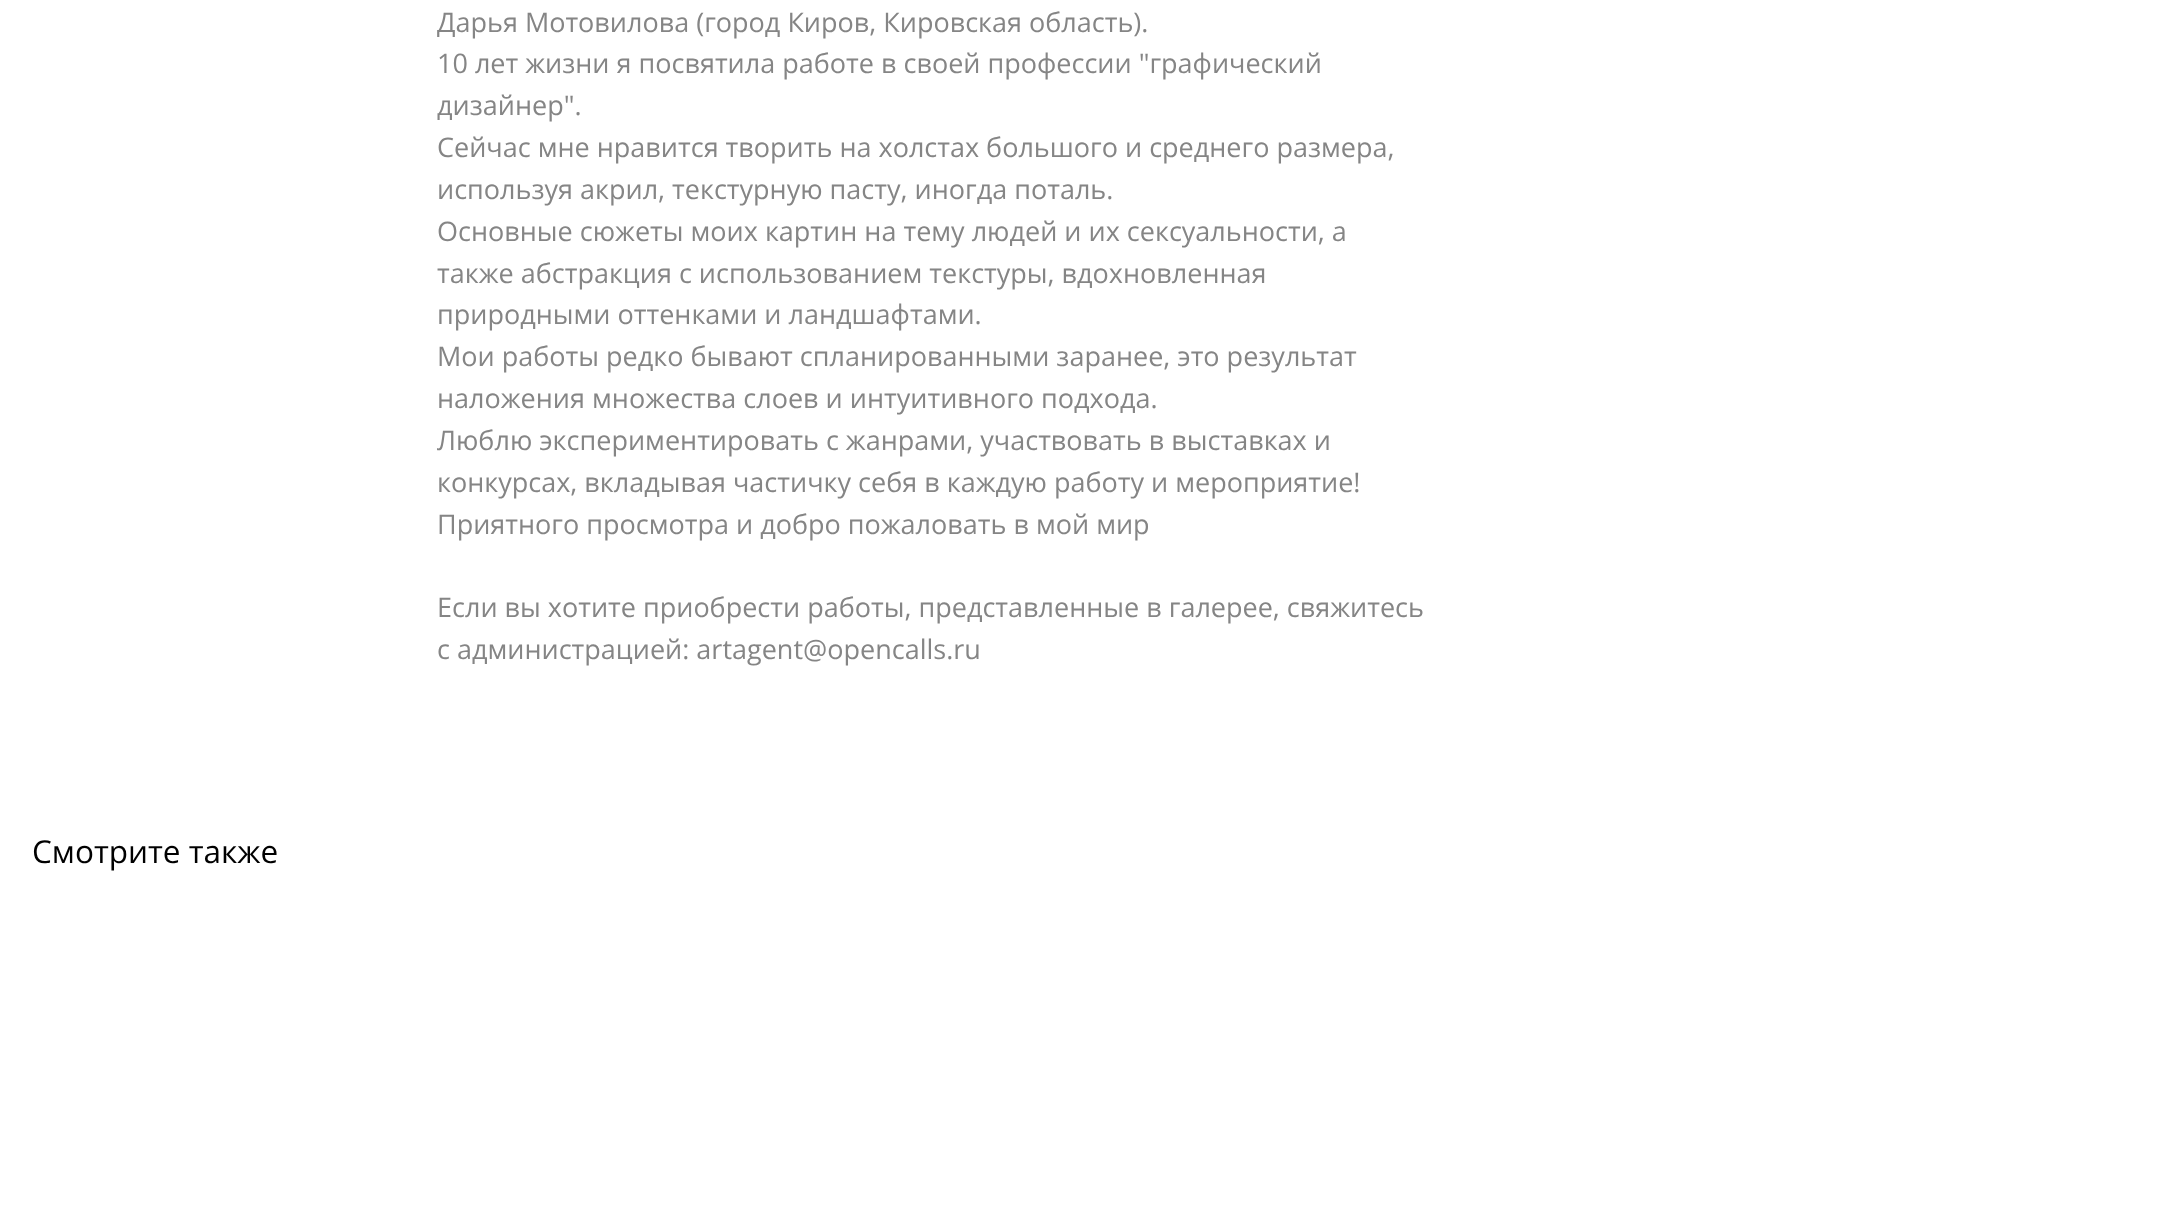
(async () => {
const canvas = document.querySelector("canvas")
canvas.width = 2176
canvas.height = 1231
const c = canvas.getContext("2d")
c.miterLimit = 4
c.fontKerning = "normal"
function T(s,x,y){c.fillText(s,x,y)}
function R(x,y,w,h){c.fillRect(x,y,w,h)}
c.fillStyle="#fff"
R(0,0,2176,1231)
c.font="27px Open Sans"
c.fillStyle="#858585"
T("Дарья Мотовилова (город Киров, Кировская область).",437,32)
T("10 лет жизни я посвятила работе в своей профессии \"графический",437,73)
T("дизайнер\".",437,115)
T("Сейчас мне нравится творить на холстах большого и среднего размера,",437,157)
T("используя акрил, текстурную пасту, иногда поталь.",437,199)
T("Основные сюжеты моих картин на тему людей и их сексуальности, а",437,241)
T("также абстракция с использованием текстуры, вдохновленная",437,283)
T("природными оттенками и ландшафтами.",437,324)
T("Мои работы редко бывают спланированными заранее, это результат",437,366)
T("наложения множества слоев и интуитивного подхода.",437,408)
T("Люблю экспериментировать с жанрами, участвовать в выставках и",437,450)
T("конкурсах, вкладывая частичку себя в каждую работу и мероприятие!",437,492)
T("Приятного просмотра и добро пожаловать в мой мир",437,534)
T("Если вы хотите приобрести работы, представленные в галерее, свяжитесь",437,617)
T("с администрацией: artagent@opencalls.ru",437,659)
c.font="31.5px Open Sans"
c.fillStyle="#000"
T("Смотрите также",32,863)
})()
